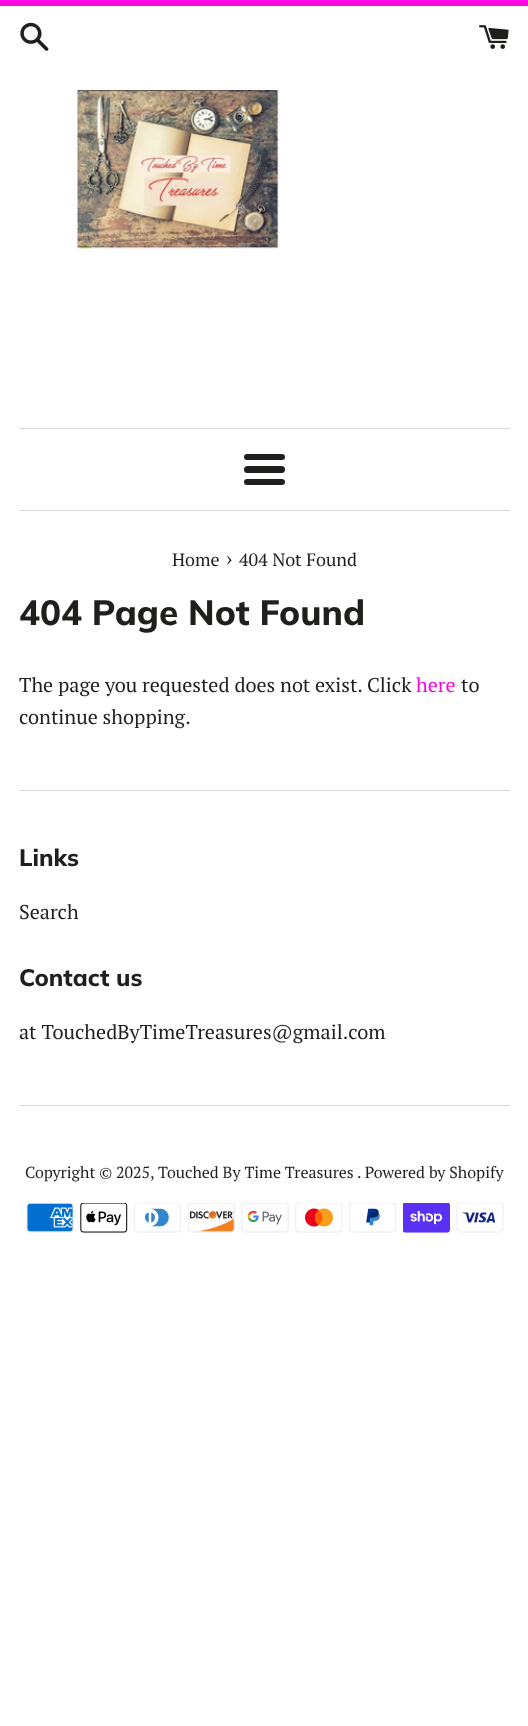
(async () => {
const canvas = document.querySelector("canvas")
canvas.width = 528
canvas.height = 1726
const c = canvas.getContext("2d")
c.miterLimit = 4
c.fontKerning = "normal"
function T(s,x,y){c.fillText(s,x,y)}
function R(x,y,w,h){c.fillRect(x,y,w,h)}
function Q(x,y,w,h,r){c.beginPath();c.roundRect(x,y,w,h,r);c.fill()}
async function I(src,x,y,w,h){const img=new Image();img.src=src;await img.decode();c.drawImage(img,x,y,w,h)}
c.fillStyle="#fff"
R(0,0,528,1726)
c.fillStyle="#fa08e1"
R(0,0,528,6)
await I("1.png",20,22,29,29)
await I("2.png",479,25,30,24)
await I("3.png",77,90,202,160)
c.fillStyle="#d7d8d2"
R(19,428,491,1)
c.fillStyle="#1f201e"
Q(244,454,41,6,3)
Q(244,466,41,7,3.5)
Q(244,479,41,6,3)
c.fillStyle="#d7d8d2"
R(19,510,491,1)
c.font="18px PT Serif"
c.fillStyle="#1f201e"
T("Home",172,566)
c.font="22px PT Serif"
T("›",226,566)
c.font="18px PT Serif"
T("404 Not Found",239,566)
c.font="800 35px Muli"
T("404 Page Not Found",19,625)
c.font="20px PT Serif"
T("The page you requested does not exist. Click",19,692)
c.fillStyle="#fa08e1"
T("here",416,692)
c.fillStyle="#1f201e"
T("to",461,692)
T("continue shopping.",19,724)
c.fillStyle="#d7d8d2"
R(19,790,491,1)
c.font="800 23.75px Muli"
c.fillStyle="#1f201e"
T("Links",19,866)
c.font="20px PT Serif"
T("Search",19,919)
c.font="800 23.75px Muli"
T("Contact us",19,986)
c.font="20px PT Serif"
T("at TouchedByTimeTreasures@gmail.com",19,1039)
c.fillStyle="#d7d8d2"
R(19,1105,491,1)
c.font="16px PT Serif"
c.fillStyle="#1f201e"
T("Copyright © 2025,",25,1178)
T("Touched By Time Treasures",158,1178)
T(". Powered by Shopify",357,1178)
await I("4.png",26,1203,48,30)
await I("5.png",80,1203,48,30)
await I("6.png",134,1203,47,30)
await I("7.png",188,1203,47,30)
await I("8.png",241,1203,48,30)
await I("9.png",295,1203,48,30)
await I("10.png",349,1203,47,30)
await I("11.png",403,1203,47,30)
await I("12.png",456,1203,48,30)
})()
